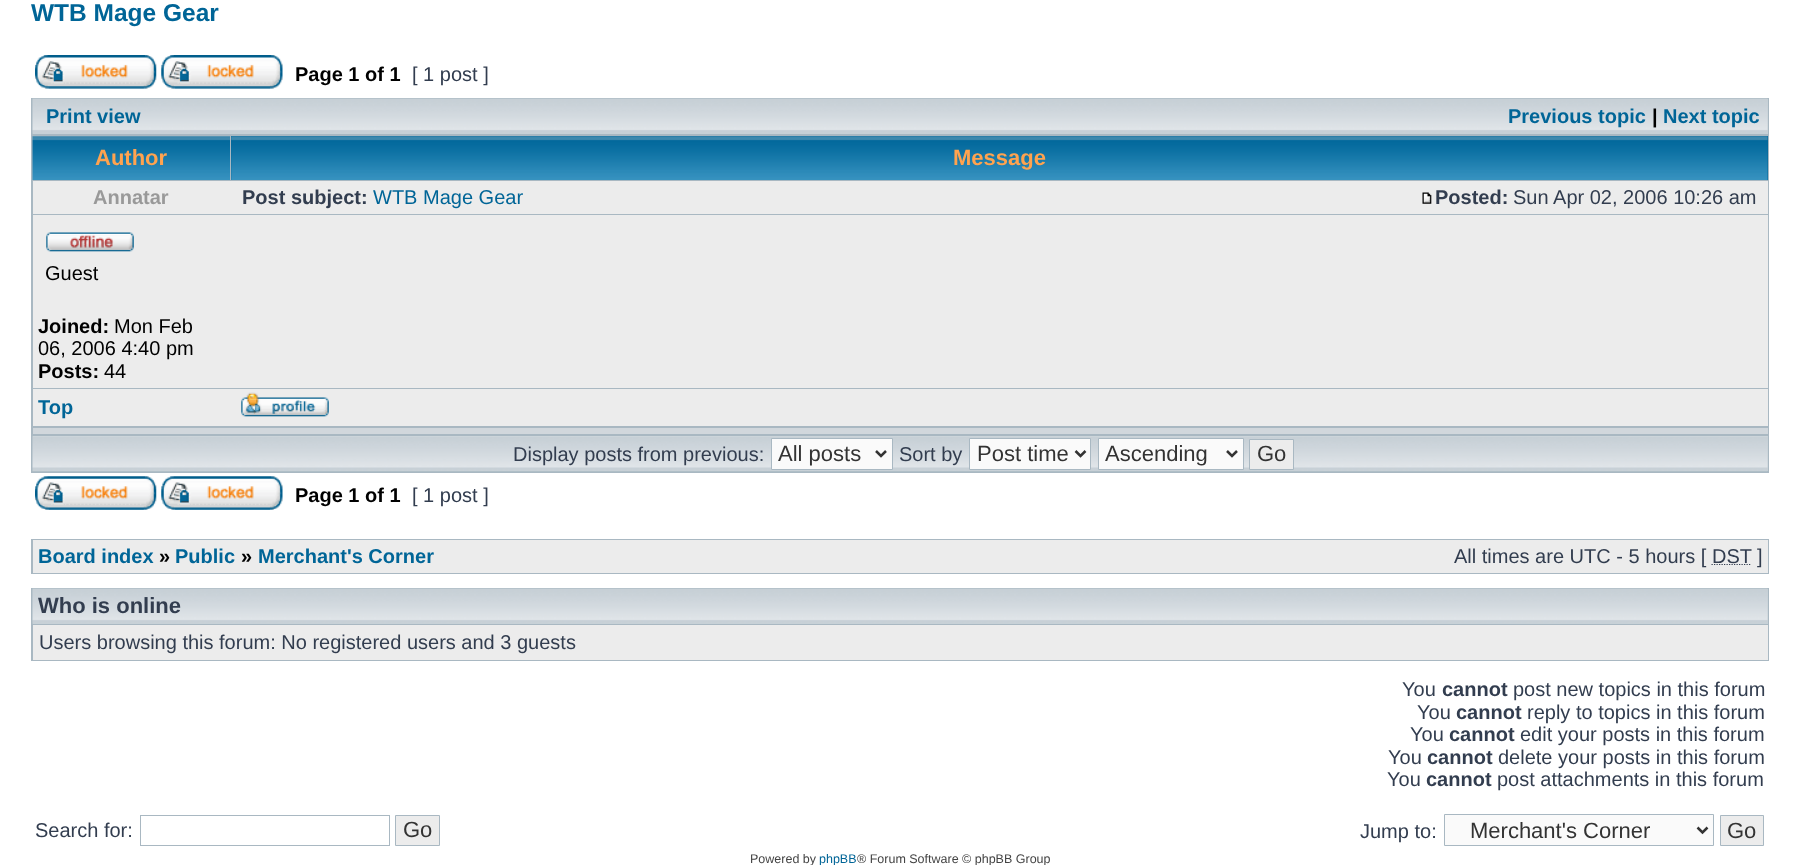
(async () => {
const canvas = document.querySelector("canvas")
canvas.width = 1800
canvas.height = 865
const c = canvas.getContext("2d")
c.miterLimit = 4
c.fontKerning = "normal"
function T(s,x,y){c.fillText(s,x,y)}
function R(x,y,w,h){c.fillRect(x,y,w,h)}
async function I(src,x,y,w,h){const img=new Image();img.src=src;await img.decode();c.drawImage(img,x,y,w,h)}
let path
c.fillStyle="#fff"
R(0,0,1800,865)
c.font="bold 24.5px Liberation Sans"
c.fillStyle="#006597"
T("WTB Mage Gear",31,21)
await I("1.png",35,55,122,34)
await I("2.png",161,55,122,34)
c.font="bold 20px Liberation Sans"
c.fillStyle="#000"
T("Page 1 of 1",295,81)
c.font="20px Liberation Sans"
c.fillStyle="#323d4f"
T("[ 1 post ]",412,81)
c.fillStyle="#a9b8c2"
R(31,98,1738,375)
c.fillStyle="#c7d0d7"
R(33,99,1735,35)
await I("3.png",32,98,1736,36)
c.font="bold 20px Liberation Sans"
c.fillStyle="#006597"
T("Print view",46,123)
T("Previous topic",1508,123)
c.fillStyle="#000"
T("|",1652,123)
c.fillStyle="#006597"
T("Next topic",1663,123)
await I("4.png",32,136,198,44)
c.font="bold 22px Liberation Sans"
c.fillStyle="#ffa34f"
T("Author",95,165)
c.fillStyle="#069"
R(231,136,1537,44)
await I("5.png",231,136,1537,44)
c.fillStyle="#ffa34f"
T("Message",953,165)
c.fillStyle="#ececec"
R(33,181,1735,33)
c.font="bold 20px Liberation Sans"
c.fillStyle="#999"
T("Annatar",93,204)
c.fillStyle="#323d4f"
T("Post subject:",242,204)
c.font="20px Liberation Sans"
c.fillStyle="#006597"
T("WTB Mage Gear",373,204)
await I("6.png",1422,192,10,12)
c.font="bold 20px Liberation Sans"
c.fillStyle="#323d4f"
T("Posted:",1435,204)
c.font="20px Liberation Sans"
T("Sun Apr 02, 2006 10:26 am",1513,204)
c.fillStyle="#ececec"
R(33,215,1735,173)
await I("7.png",46,232,88,20)
c.fillStyle="#000"
T("Guest",45,280)
c.font="bold 20px Liberation Sans"
T("Joined:",38,333)
c.font="20px Liberation Sans"
T("Mon Feb",114,333)
T("06, 2006 4:40 pm",38,355)
c.font="bold 20px Liberation Sans"
T("Posts:",38,378)
c.font="20px Liberation Sans"
T("44",104,378)
c.fillStyle="#ececec"
R(33,389,1735,37)
c.font="bold 20px Liberation Sans"
c.fillStyle="#006597"
T("Top",38,414)
await I("8.png",241,392,88,25)
c.fillStyle="#d1d7dc"
R(33,428,1735,6)
c.fillStyle="#c7d0d7"
R(33,436,1735,35)
await I("9.png",32,436,1736,36)
c.font="20px Liberation Sans"
c.fillStyle="#323d4f"
T("Display posts from previous:",513,461)
c.fillStyle="#fafafa"
c.beginPath()
c.rect(771.5,438.5,121,31)
c.fill()
c.strokeStyle="#a9b8c2"
c.stroke()
path = new Path2D("M876 451l5 5l5-5")
c.strokeStyle="#333"
c.lineWidth=2.5
c.stroke(path)
c.font="22px Liberation Sans"
c.fillStyle="#333"
T("All posts",778,461)
c.font="20px Liberation Sans"
c.fillStyle="#323d4f"
T("Sort by",899,461)
c.fillStyle="#fafafa"
c.beginPath()
c.rect(969.5,438.5,121,31)
c.fill()
c.strokeStyle="#a9b8c2"
c.lineWidth=1
c.stroke()
path = new Path2D("M1075.5 451l5 5l5-5")
c.strokeStyle="#333"
c.lineWidth=2.5
c.stroke(path)
c.font="22px Liberation Sans"
c.fillStyle="#333"
T("Post time",977,461)
c.fillStyle="#fafafa"
c.beginPath()
c.rect(1098.5,438.5,145,31)
c.fill()
c.strokeStyle="#a9b8c2"
c.lineWidth=1
c.stroke()
path = new Path2D("M1227 451l5 5l5-5")
c.strokeStyle="#333"
c.lineWidth=2.5
c.stroke(path)
c.fillStyle="#333"
T("Ascending",1105,461)
c.fillStyle="#ececec"
c.beginPath()
c.rect(1249.5,439.5,44,30)
c.fill()
c.strokeStyle="#a9b8c2"
c.lineWidth=1
c.stroke()
c.fillStyle="#333"
T("Go",1257,461)
await I("10.png",35,476,122,34)
await I("11.png",161,476,122,34)
c.font="bold 20px Liberation Sans"
c.fillStyle="#000"
T("Page 1 of 1",295,502)
c.font="20px Liberation Sans"
c.fillStyle="#323d4f"
T("[ 1 post ]",412,502)
c.fillStyle="#a9b8c2"
R(31,539,1738,35)
c.fillStyle="#ececec"
R(33,540,1735,33)
c.font="bold 20px Liberation Sans"
c.fillStyle="#006597"
T("Board index",38,563)
c.fillStyle="#000"
T("»",159,563)
c.fillStyle="#006597"
T("Public",175,563)
c.fillStyle="#000"
T("»",241,563)
c.fillStyle="#006597"
T("Merchant's Corner",258,563)
c.font="20px Liberation Sans"
c.fillStyle="#323d4f"
T("All times are UTC - 5 hours [",1454,563)
path = new Path2D("M1711.5 564.5h40")
c.strokeStyle="#323d4f"
c.lineWidth=1.2
c.setLineDash([1.25,1.25])
c.stroke(path)
T("DST",1712,563)
T("]",1757,563)
c.fillStyle="#a9b8c2"
R(31,588,1738,73)
c.fillStyle="#c7d0d7"
R(33,589,1735,35)
await I("3.png",32,588,1736,36)
c.font="bold 22px Liberation Sans"
c.fillStyle="#323d4f"
T("Who is online",38,613)
c.fillStyle="#ececec"
R(33,625,1735,35)
c.font="20px Liberation Sans"
c.fillStyle="#323d4f"
T("Users browsing this forum: No registered users and 3 guests",39,649)
T("You",1402,696)
c.font="bold 20px Liberation Sans"
T("cannot",1442,696)
c.font="20px Liberation Sans"
T("post new topics in this forum",1513,696)
T("You",1417,719)
c.font="bold 20px Liberation Sans"
T("cannot",1456,719)
c.font="20px Liberation Sans"
T("reply to topics in this forum",1527,719)
T("You",1410,741)
c.font="bold 20px Liberation Sans"
T("cannot",1449,741)
c.font="20px Liberation Sans"
T("edit your posts in this forum",1520,741)
T("You",1388,764)
c.font="bold 20px Liberation Sans"
T("cannot",1427,764)
c.font="20px Liberation Sans"
T("delete your posts in this forum",1498,764)
T("You",1387,786)
c.font="bold 20px Liberation Sans"
T("cannot",1426,786)
c.font="20px Liberation Sans"
T("post attachments in this forum",1497,786)
T("Search for:",35,837)
c.strokeStyle="#a9b8c2"
c.lineWidth=1
c.setLineDash([])
c.strokeRect(140.5,815.5,249,30)
c.fillStyle="#ececec"
c.beginPath()
c.rect(395.5,815.5,44,30)
c.fill()
c.stroke()
c.font="22px Liberation Sans"
c.fillStyle="#333"
T("Go",403,837)
c.font="20px Liberation Sans"
c.fillStyle="#323d4f"
T("Jump to:",1360,838)
c.fillStyle="#fafafa"
c.beginPath()
c.rect(1444.5,814.5,269,31)
c.fill()
c.stroke()
path = new Path2D("M1697.5 827.5l5 5l5-5")
c.strokeStyle="#333"
c.lineWidth=2.5
c.stroke(path)
c.font="22px Liberation Sans"
c.fillStyle="#333"
T("Merchant's Corner",1470,838)
c.fillStyle="#ececec"
c.beginPath()
c.rect(1720.5,815.5,43,30)
c.fill()
c.strokeStyle="#a9b8c2"
c.lineWidth=1
c.stroke()
c.fillStyle="#333"
T("Go",1727,838)
c.font="12.5px Liberation Sans"
c.fillStyle="#444"
T("Powered by",750,863)
c.fillStyle="#006597"
T("phpBB",819,863)
c.fillStyle="#444"
T("® Forum Software © phpBB Group",857,863)
})()
